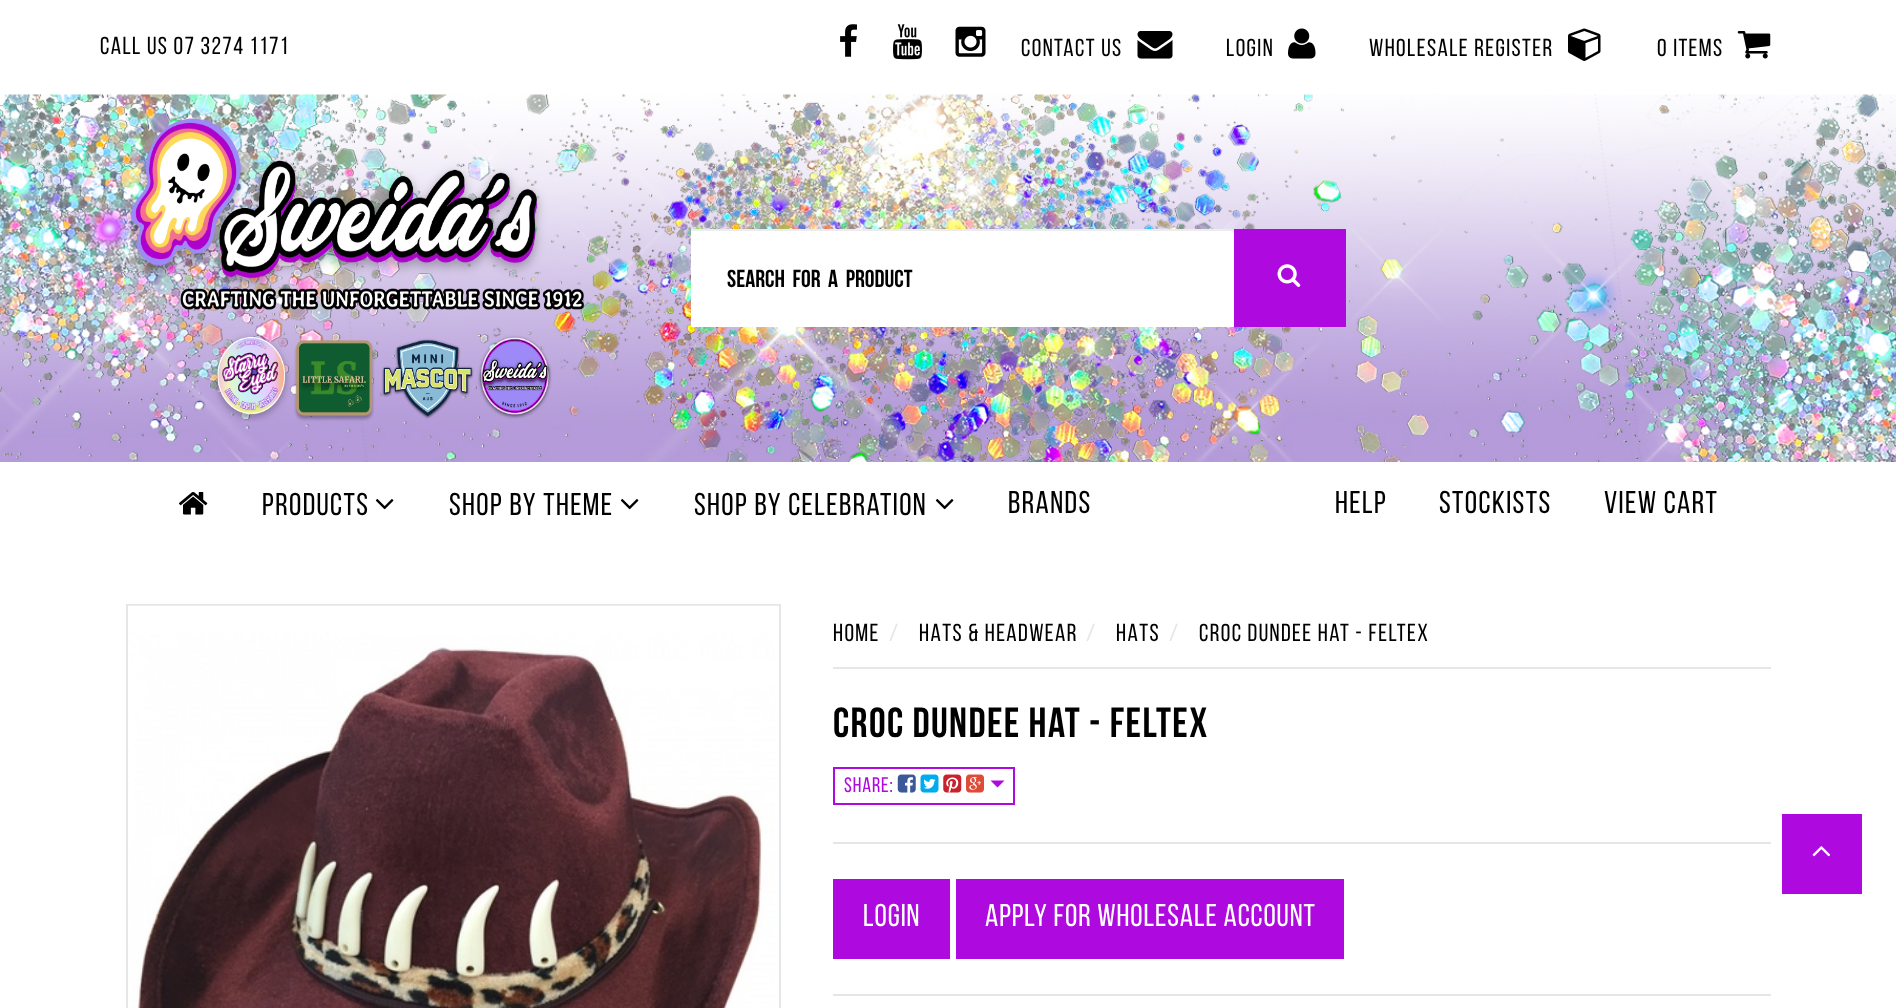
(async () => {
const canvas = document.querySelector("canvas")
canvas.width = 1896
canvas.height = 1008
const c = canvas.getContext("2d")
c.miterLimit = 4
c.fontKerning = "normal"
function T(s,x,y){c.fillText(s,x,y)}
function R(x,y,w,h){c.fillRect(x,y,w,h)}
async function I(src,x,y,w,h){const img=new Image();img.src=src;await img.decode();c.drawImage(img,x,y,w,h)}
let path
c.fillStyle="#fff"
R(0,0,1896,1008)
c.letterSpacing="1.4px"
c.font="24.5px Bebas Neue"
c.fillStyle="#000"
T("Call Us 07 3274 1171",100,54)
await I("1.png",840,24,17,33)
await I("2.png",893,24,29,36)
await I("3.png",955,26,31,31)
T("Contact Us",1021,56)
await I("4.png",1137,31,36,28)
T("Login",1226,56)
await I("5.png",1288,28,28,31)
T("Wholesale Register",1369,56)
await I("6.png",1568,28,33,33)
T("0 Items",1657,56)
await I("7.png",1737,31,34,28)
await I("8.png",0,94,1896,368)
await I("9.png",127,118,457,304)
c.fillStyle="#fff"
R(691,231,543,96)
c.fillStyle="#ececec"
R(691,229,545,2)
c.letterSpacing="0px"
c.font="bold 24.5px Bebas Neue"
c.fillStyle="#000"
T("Search  for  a  product",727,287)
c.fillStyle="#ae09de"
R(1234,229,112,98)
await I("10.png",1277,264,24,23)
await I("11.png",179,492,29,23)
c.letterSpacing="1.4px"
c.font="31.5px Bebas Neue"
c.fillStyle="#000"
T("Products",262,515)
await I("12.png",375,499,19,11)
T("Shop by theme",449,515)
await I("12.png",620,499,19,11)
T("Shop by Celebration",694,515)
await I("12.png",935,499,19,11)
T("Brands",1008,513)
T("Help",1335,513)
T("Stockists",1439,513)
T("View Cart",1604,513)
c.strokeStyle="#e3e7e7"
c.lineWidth=2
c.strokeRect(127,605,653,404)
await I("13.png",128,605,650,403)
c.fillStyle="#e3e7e7"
R(833,667,938,2)
c.font="24.5px Bebas Neue"
c.fillStyle="#000"
T("Home",833,641)
c.fillStyle="#e3e7e7"
T("/",889,641)
c.fillStyle="#000"
T("HATS & HEADWEAR",919,641)
c.fillStyle="#e3e7e7"
T("/",1086,641)
c.fillStyle="#000"
T("HATS",1116,641)
c.fillStyle="#e3e7e7"
T("/",1169,641)
c.fillStyle="#000"
T("Croc Dundee Hat - Feltex",1199,641)
c.font="bold 42px Bebas Neue"
T("Croc Dundee Hat - Feltex",833,737)
c.strokeStyle="#ae09de"
c.strokeRect(834,768,180,36)
c.letterSpacing="0.9px"
c.font="21px Bebas Neue"
c.fillStyle="#ae09de"
T("Share:",844,792)
await I("14.png",897,774,19,19)
await I("15.png",920,774,19,19)
await I("16.png",943,774,19,19)
await I("17.png",966,774,18,19)
path = new Path2D("M990.5 780.5h14l-7 7z")
c.fill(path)
c.fillStyle="#e3e7e7"
R(833,842,938,2)
c.fillStyle="#ae09de"
R(833,879,117,80)
c.font="31.5px Bebas Neue"
c.fillStyle="#fff"
T("Login",863,926)
c.fillStyle="#ae09de"
R(956,879,388,80)
c.fillStyle="#fff"
T("Apply for Wholesale Account",985,926)
c.fillStyle="#e3e7e7"
R(833,994,938,2)
c.fillStyle="#ae09de"
R(1782,814,80,80)
await I("18.png",1812,846,19,11)
})()
